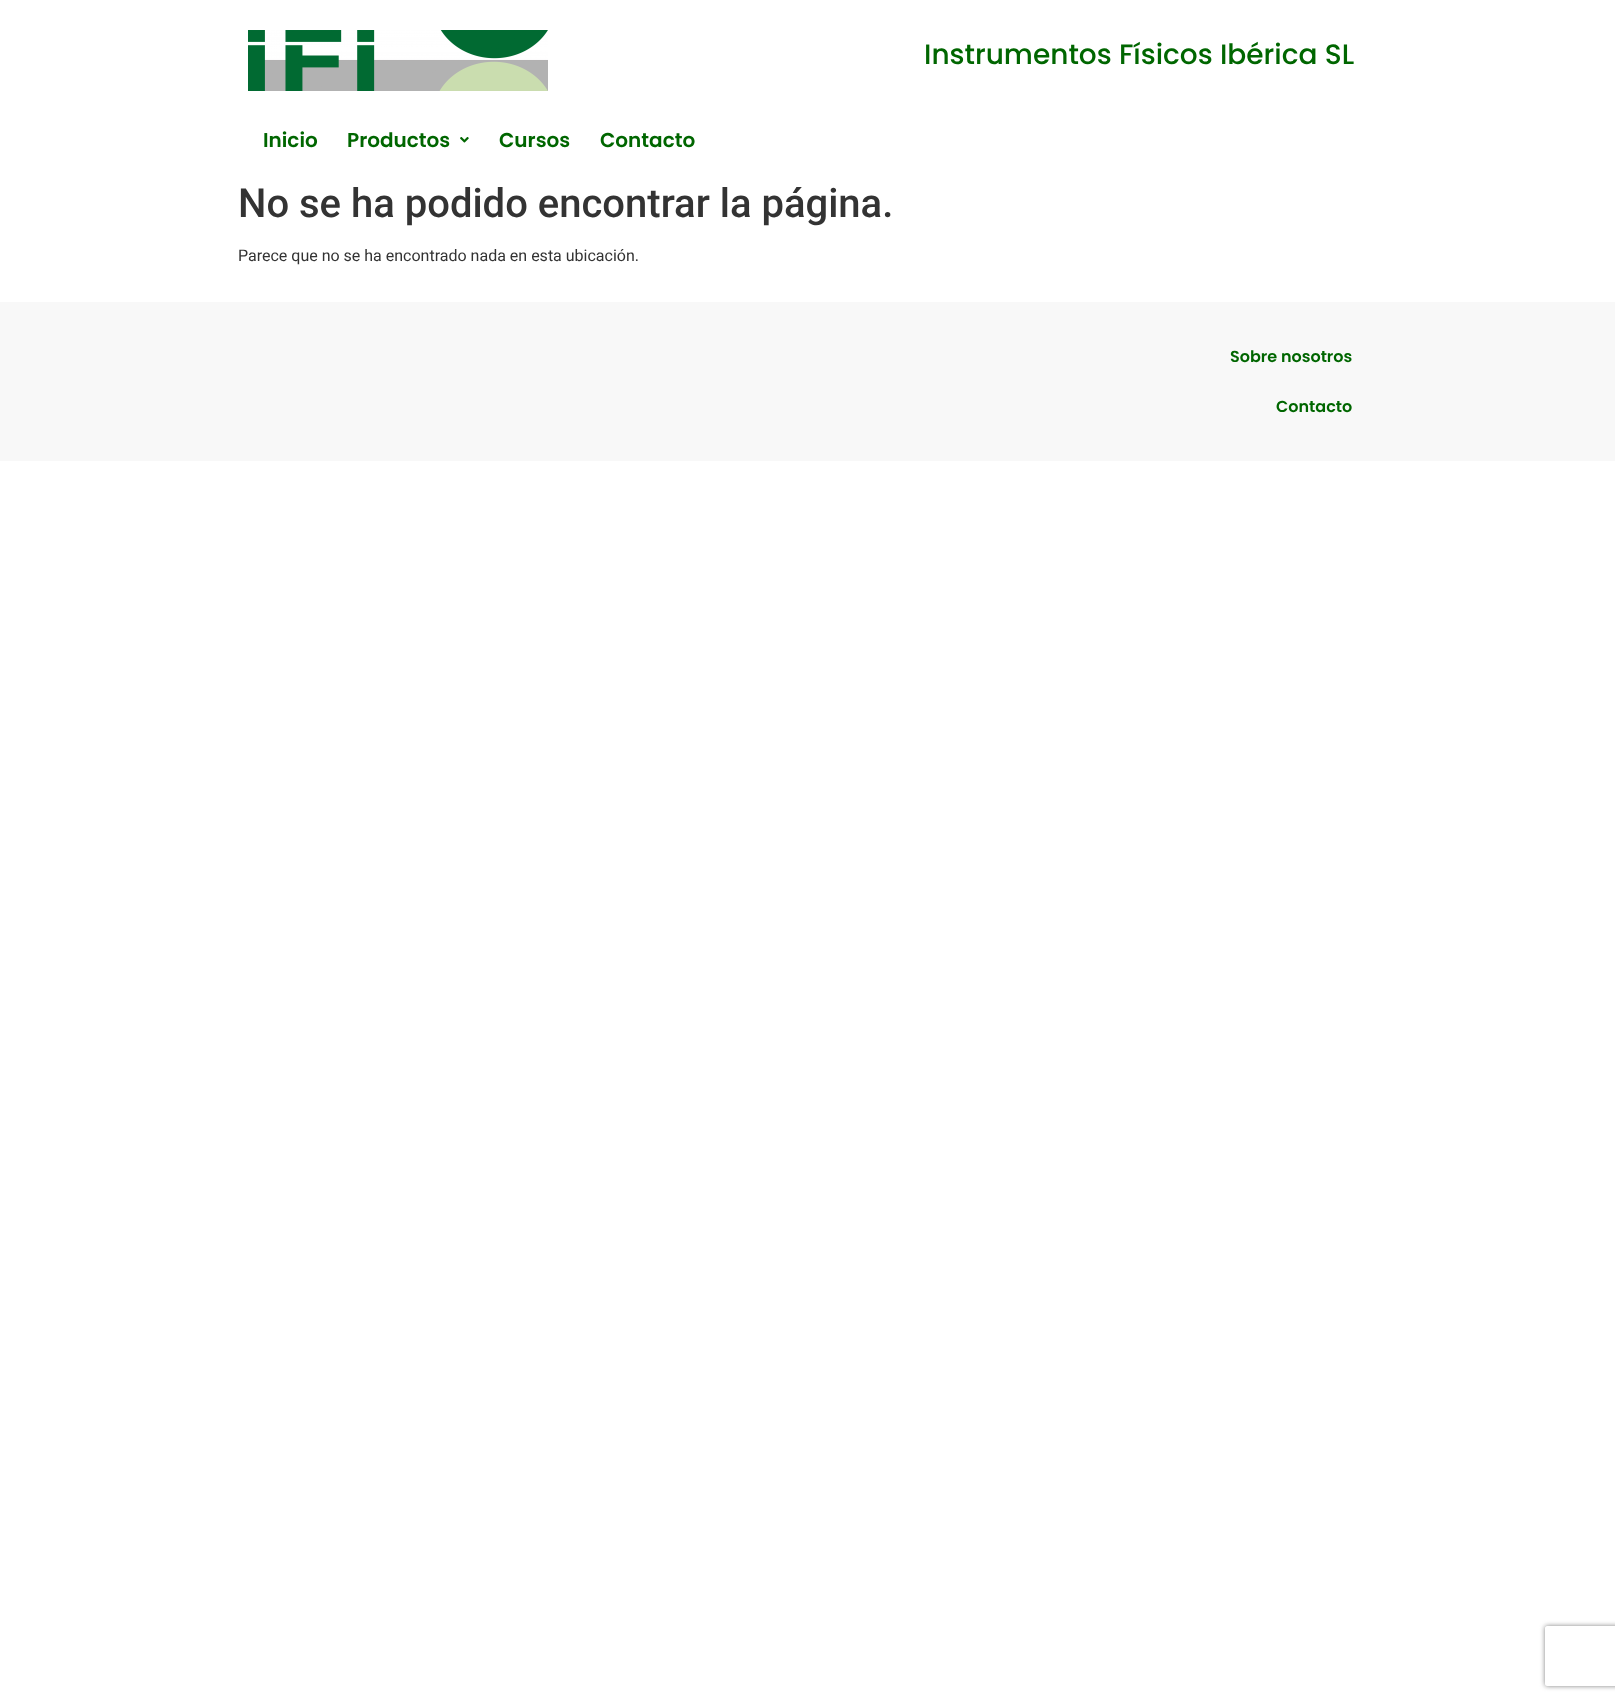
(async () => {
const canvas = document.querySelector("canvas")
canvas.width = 1615
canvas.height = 1700
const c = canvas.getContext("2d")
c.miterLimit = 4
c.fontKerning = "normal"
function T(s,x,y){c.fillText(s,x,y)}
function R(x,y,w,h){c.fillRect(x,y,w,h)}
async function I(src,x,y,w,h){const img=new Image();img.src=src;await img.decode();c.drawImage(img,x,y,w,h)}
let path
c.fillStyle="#fff"
R(0,0,1615,1700)
await I("1.png",248,30,300,61)
c.font="500 28px Poppins"
c.fillStyle="#060"
T("Instrumentos Físicos Ibérica SL",924,64)
c.font="600 20px Poppins"
T("Inicio",263,147)
T("Productos",347,147)
await I("2.png",460,137,9,6)
T("Cursos",499,147)
T("Contacto",600,147)
c.font="500 40px Roboto"
c.fillStyle="#333"
T("No se ha podido encontrar la página.",238,217)
c.font="16px Roboto"
T("Parece que no se ha encontrado nada en esta ubicación.",238,261)
c.fillStyle="#f8f8f8"
R(0,302,1615,159)
c.font="600 16px Poppins"
c.fillStyle="#060"
T("Sobre nosotros",1230,362)
T("Contacto",1276,412)
c.save()
path = new Path2D("M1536 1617h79v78h-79zm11 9h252c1 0 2 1 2 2v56c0 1-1 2-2 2h-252c-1 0-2-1-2-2v-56c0-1 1-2 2-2z")
c.clip(path,"evenodd")
c.fillStyle="#808080"
c.filter="blur(2.5px)"
c.beginPath()
c.roundRect(1545,1626,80,60,2)
c.fill()
c.filter="none"
c.restore()
})()
